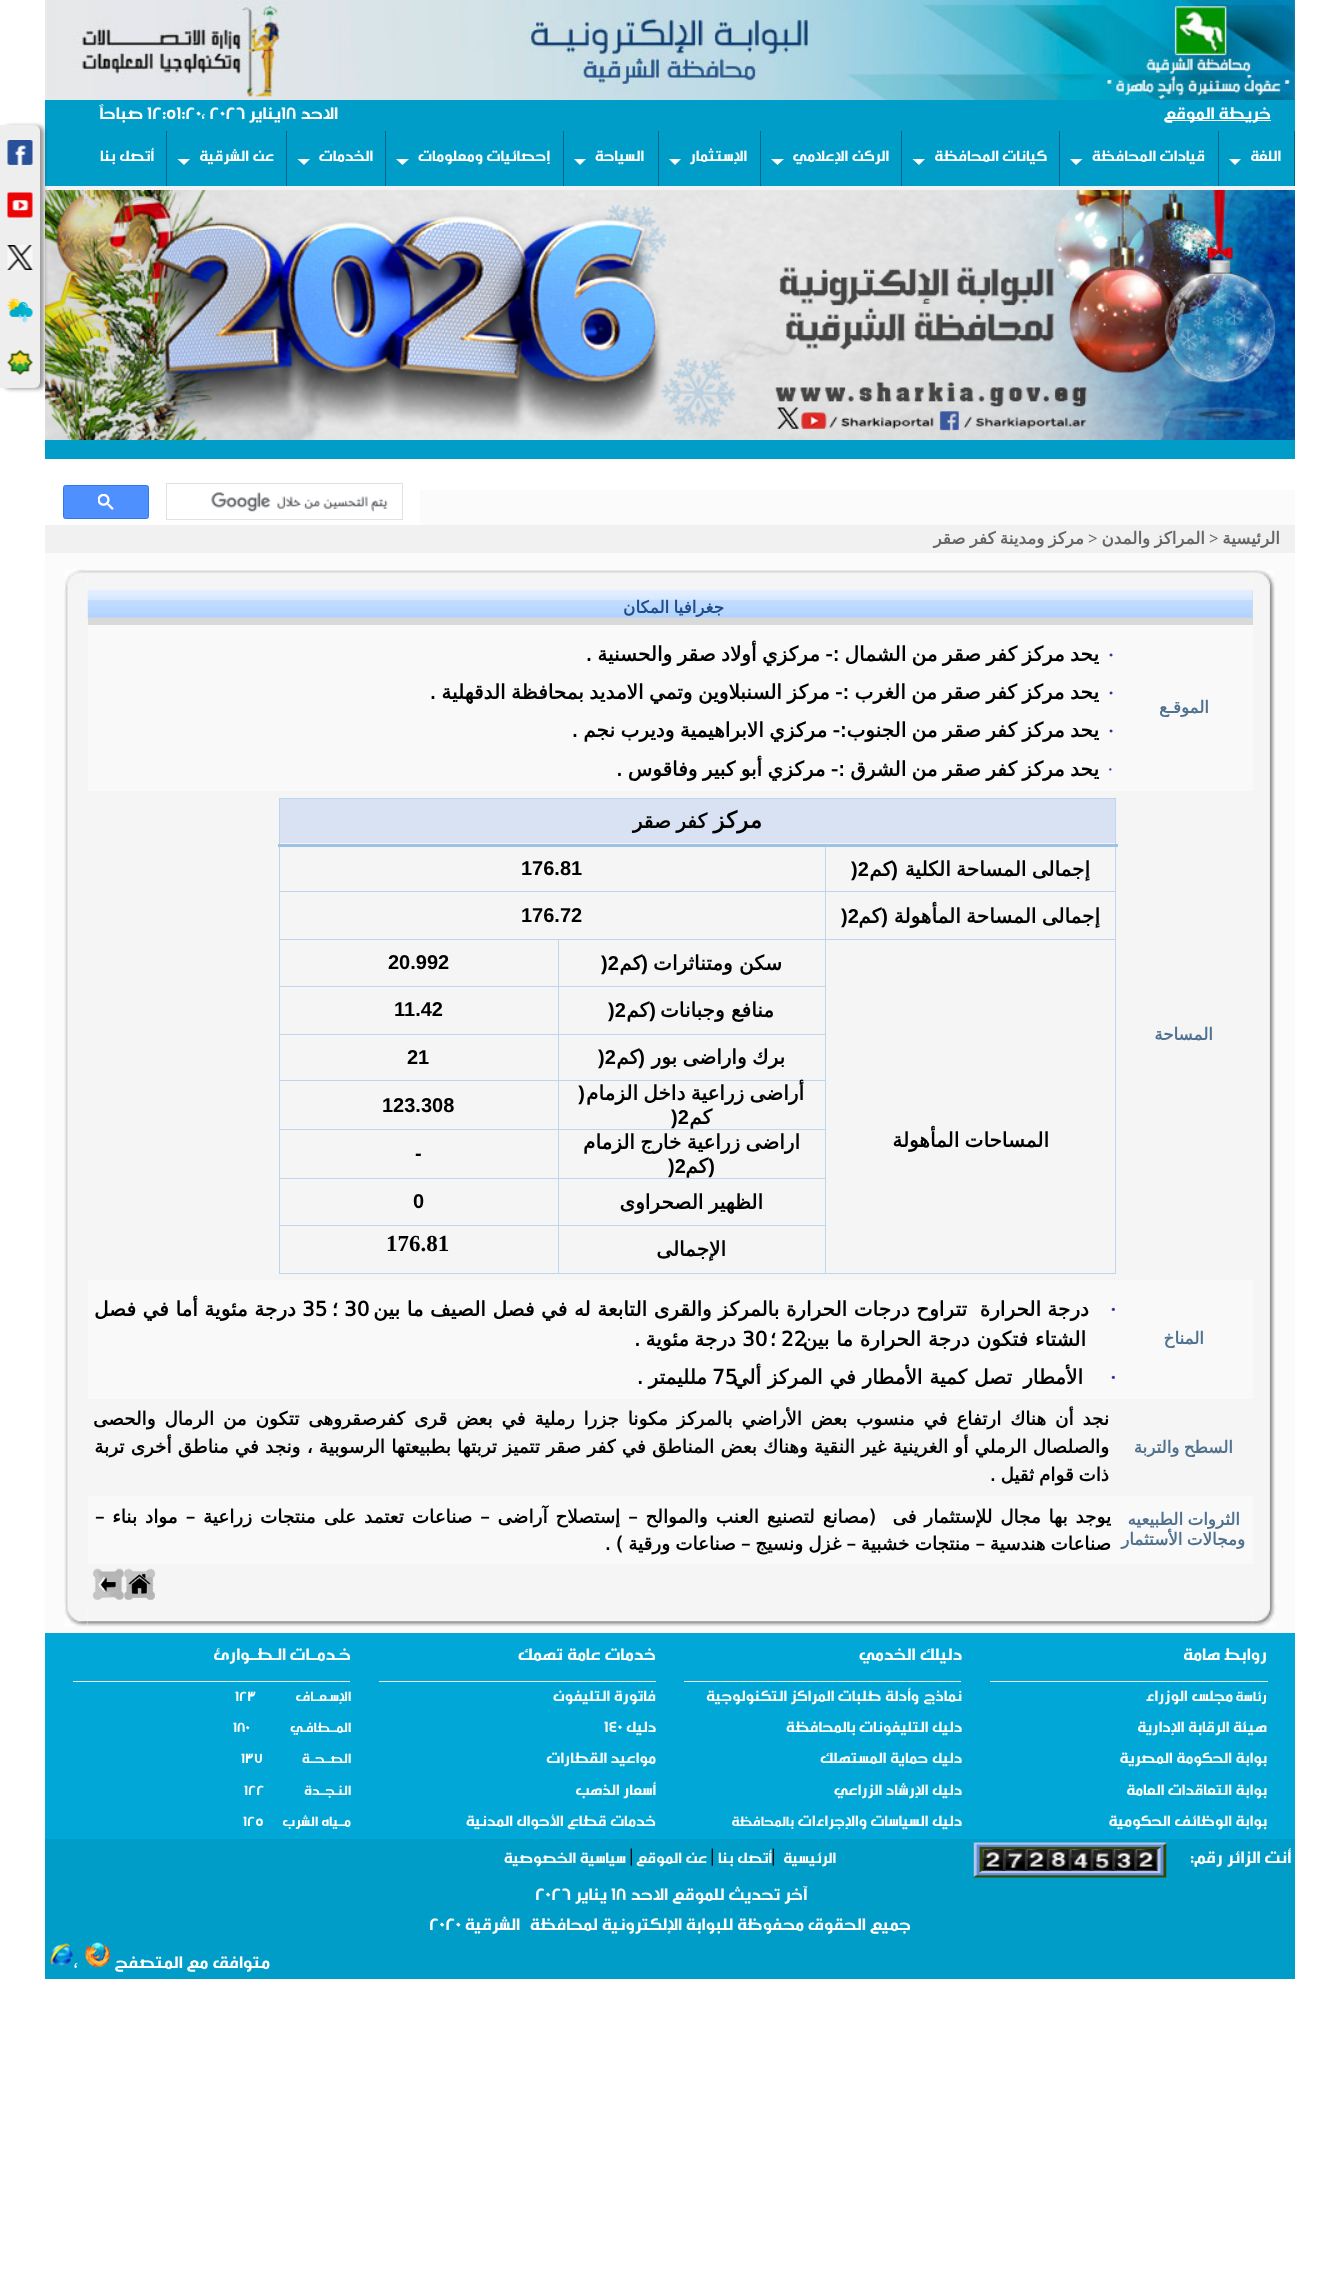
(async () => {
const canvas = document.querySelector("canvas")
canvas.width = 1340
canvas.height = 2295
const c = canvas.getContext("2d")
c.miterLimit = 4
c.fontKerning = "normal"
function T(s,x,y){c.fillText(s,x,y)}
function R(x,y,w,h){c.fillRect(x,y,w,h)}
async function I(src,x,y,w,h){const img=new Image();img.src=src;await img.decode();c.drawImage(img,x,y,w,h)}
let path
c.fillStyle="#fff"
R(0,0,1340,2295)
c.fillStyle="#fbfbfb"
R(45,490,1250,1143)
await I("1.png",45,0,1250,100)
c.fillStyle="#009dc9"
R(45,100,1250,31)
c.fillStyle="#fff"
R(1165,120,106,1)
c.direction="rtl"
c.font="16.75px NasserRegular"
T("خريطة الموقع",1271,119)
T("الاحد",338,119)
c.direction="ltr"
T("18",281,119)
c.direction="rtl"
T("يناير",281,119)
c.direction="ltr"
T("12:51:20، 2026",147,119)
c.direction="rtl"
T("صباحاً",143,119)
c.fillStyle="#009dc9"
R(45,131,1249,55)
c.fillStyle="#006589"
R(1294,131,1,55)
c.font="15px NasserRegular"
c.fillStyle="#fff"
T("اللغة",1281,161)
path = new Path2D("M1229 159h12l-6 6z")
c.fill(path)
c.fillStyle="#006589"
R(1218,131,1,55)
c.fillStyle="#fff"
T("قيادات المحافظة",1205,161)
path = new Path2D("M1070 159h12.5l-6.5 6z")
c.fill(path)
c.fillStyle="#006589"
R(1059,131,1,55)
c.fillStyle="#fff"
T("كيانات المحافظة",1047,161)
path = new Path2D("M912.5 159h12.5l-6 6z")
c.fill(path)
c.fillStyle="#006589"
R(901,131,1,55)
c.fillStyle="#fff"
T("الركن الإعلامي",889,161)
path = new Path2D("M771 159h13l-6.5 6z")
c.fill(path)
c.fillStyle="#006589"
R(760,131,1,55)
c.fillStyle="#fff"
T("الإستثمار",747,161)
path = new Path2D("M669 159h12l-6 6z")
c.fill(path)
c.fillStyle="#006589"
R(658,131,1,55)
c.fillStyle="#fff"
T("السياحة",644,161)
path = new Path2D("M574 159h12l-6 6z")
c.fill(path)
c.fillStyle="#006589"
R(563,131,1,55)
c.fillStyle="#fff"
T("إحصائيات ومعلومات",550,161)
path = new Path2D("M396 159h13l-6.5 6z")
c.fill(path)
c.fillStyle="#006589"
R(385,131,1,55)
c.fillStyle="#fff"
T("الخدمات",373,161)
path = new Path2D("M297.5 159h12.5l-6 6z")
c.fill(path)
c.fillStyle="#006589"
R(286,131,1,55)
c.fillStyle="#fff"
T("عن الشرقية",274,161)
path = new Path2D("M177.5 159h12.5l-6 6z")
c.fill(path)
c.fillStyle="#006589"
R(166,131,1,55)
c.fillStyle="#fff"
T("أتصل بنا",154,161)
c.fillStyle="#f3f3f3"
R(45,186,1250,4)
await I("2.png",45,190,1250,250)
c.fillStyle="#009dc9"
R(45,440,1250,19)
c.fillStyle="#fff"
R(45,490,375,35)
c.strokeStyle="#dfe1e5"
c.strokeRect(166.5,483.5,236,36)
await I("3.png",211,492,177,20)
c.fillStyle="#4d90fe"
c.beginPath()
c.roundRect(63.5,485.5,85,33,2)
c.fill()
c.strokeStyle="#3079ed"
c.stroke()
await I("4.png",98,494,16,16)
c.fillStyle="#f0f1f0"
R(45,525,1250,28)
c.font="bold 16.75px DejaVu Sans"
c.fillStyle="#666"
T("الرئيسية",1280,544)
c.direction="ltr"
c.font="bold 16.75px Liberation Serif"
T(">",1209,544)
c.wordSpacing="-1px"
c.direction="rtl"
c.font="bold 16.75px DejaVu Sans"
T("المراكز والمدن",1205,544)
c.wordSpacing="0px"
c.direction="ltr"
c.font="bold 16.75px Liberation Serif"
T(">",1088,544)
c.wordSpacing="-1px"
c.direction="rtl"
c.font="bold 16.75px DejaVu Sans"
T("مركز ومدينة كفر صقر",1084,544)
await I("6.png",87,570,1166,20)
await I("5.png",1252,570,23,20)
await I("7.png",87,570,1,3)
await I("8.png",65,569,23,21)
await I("9.png",1253,590,22,1015)
c.fillStyle="#f5f5f5"
R(87,590,1166,1015)
c.fillStyle="#d9d9d9"
R(88,590,1165,35)
await I("10.png",87,590,1166,28)
c.fillStyle="#204d89"
T("جغرافيا المكان",724,613)
c.fillStyle="#f9f9f9"
R(88,625,1165,166)
c.wordSpacing="0px"
c.fillStyle="#50728f"
T("الموقـع",1209,713)
c.direction="ltr"
c.font="bold 18.33px Liberation Serif"
c.fillStyle="#339"
T("·",1108,661)
c.wordSpacing="-1px"
c.direction="rtl"
c.font="bold 20px DejaVu Sans"
c.fillStyle="#000"
T("يحد مركز كفر صقر من الشمال :- مركزي أولاد صقر والحسنية .",1099,661)
c.wordSpacing="0px"
c.direction="ltr"
c.font="bold 18.33px Liberation Serif"
c.fillStyle="#339"
T("·",1108,699)
c.wordSpacing="-0.9px"
c.direction="rtl"
c.font="bold 20px DejaVu Sans"
c.fillStyle="#000"
T("يحد مركز كفر صقر من الغرب :- مركز السنبلاوين وتمي الامديد بمحافظة الدقهلية .",1099,699)
c.wordSpacing="0px"
c.direction="ltr"
c.font="bold 18.33px Liberation Serif"
c.fillStyle="#339"
T("·",1108,737)
c.wordSpacing="-1px"
c.direction="rtl"
c.font="bold 20px DejaVu Sans"
c.fillStyle="#000"
T("يحد مركز كفر صقر من الجنوب:- مركزي الابراهيمية وديرب نجم .",1099,737)
c.wordSpacing="0px"
c.direction="ltr"
c.font="20px Liberation Serif"
c.fillStyle="#339"
T("·",1107,776)
c.wordSpacing="-1px"
c.direction="rtl"
c.font="bold 20px DejaVu Sans"
c.fillStyle="#000"
T("يحد مركز كفر صقر من الشرق :- مركزي أبو كبير وفاقوس .",1099,776)
c.wordSpacing="0px"
c.font="bold 16.75px DejaVu Sans"
c.fillStyle="#50728f"
T("المساحة",1213,1040)
c.fillStyle="#d9e2f3"
R(280,799,835,44)
c.fillStyle="#bdd6ee"
R(279,798,837,1)
R(1115,844,1,430)
R(1115,798,1,47)
R(279,1273,547,1)
R(558,1225,1,49)
R(279,1225,1,49)
R(279,1225,547,1)
R(558,1178,1,48)
R(279,1178,1,48)
R(279,1178,547,1)
R(558,1129,1,50)
R(279,1129,1,50)
R(279,1129,547,1)
R(558,1080,1,50)
R(279,1080,1,50)
R(279,1080,547,1)
R(558,1034,1,47)
R(279,1034,1,47)
R(279,1034,547,1)
R(558,986,1,49)
R(279,986,1,49)
R(279,986,547,1)
R(558,939,1,49)
R(279,939,1,49)
R(825,1273,291,1)
R(825,939,1,335)
R(279,939,837,1)
R(825,891,1,49)
R(279,891,1,49)
R(279,891,837,1)
R(279,844,1,49)
R(279,798,1,47)
R(825,844,1,49)
c.fillStyle="#9cc2e5"
R(278,844,840,3)
c.font="bold 23px DejaVu Sans"
c.fillStyle="#000"
T("مركز",762,828)
c.wordSpacing="-1px"
c.font="bold 20px DejaVu Sans"
T("كفر صقر",707,828)
T("إجمالى المساحة الكلية",1090,876)
c.wordSpacing="0px"
c.font="bold 20px Liberation Sans"
T("(",898,876)
c.font="bold 20px DejaVu Sans"
T("كم",892,876)
c.direction="ltr"
c.font="bold 20px Liberation Sans"
T(")2",851,876)
T("176.81",521,875)
c.wordSpacing="-1px"
c.direction="rtl"
c.font="bold 20px DejaVu Sans"
T("إجمالى المساحة المأهولة",1100,923)
c.wordSpacing="0px"
c.font="bold 20px Liberation Sans"
T("(",888,923)
c.font="bold 20px DejaVu Sans"
T("كم",881,923)
c.direction="ltr"
c.font="bold 20px Liberation Sans"
T(")2",841,923)
T("176.72",521,922)
c.direction="rtl"
c.font="bold 20px DejaVu Sans"
T("سكن ومتناثرات",782,970)
c.font="bold 20px Liberation Sans"
T("(",648,970)
c.font="bold 20px DejaVu Sans"
T("كم",642,970)
c.direction="ltr"
c.font="bold 20px Liberation Sans"
T(")2",601,970)
T("20.992",388,969)
c.wordSpacing="-1px"
c.direction="rtl"
c.font="bold 20px DejaVu Sans"
T("المساحات المأهولة",1049,1147)
c.wordSpacing="0px"
T("منافع وجبانات",774,1017)
c.font="bold 20px Liberation Sans"
T("(",656,1017)
c.font="bold 20px DejaVu Sans"
T("كم",649,1017)
c.direction="ltr"
c.font="bold 20px Liberation Sans"
T(")2",608,1017)
T("11.42",394,1016)
c.wordSpacing="-1px"
c.direction="rtl"
c.font="bold 20px DejaVu Sans"
T("برك واراضى بور",785,1064)
c.wordSpacing="0px"
c.font="bold 20px Liberation Sans"
T("(",645,1064)
c.font="bold 20px DejaVu Sans"
T("كم",639,1064)
c.direction="ltr"
c.font="bold 20px Liberation Sans"
T(")2",598,1064)
T("21",407,1064)
c.wordSpacing="-1px"
c.direction="rtl"
c.font="bold 20px DejaVu Sans"
T("أراضى زراعية داخل الزمام",804,1100)
c.wordSpacing="0px"
c.font="bold 20px Liberation Sans"
T("(",585,1100)
c.font="bold 20px DejaVu Sans"
T("كم",712,1124)
c.direction="ltr"
c.font="bold 20px Liberation Sans"
T(")2",671,1124)
T("123.308",382,1112)
c.wordSpacing="-1px"
c.direction="rtl"
c.font="bold 20px DejaVu Sans"
T("اراضى زراعية خارج الزمام",800,1149)
c.wordSpacing="0px"
c.font="bold 20px Liberation Sans"
T("(",715,1173)
c.font="bold 20px DejaVu Sans"
T("كم",708,1173)
c.direction="ltr"
c.font="bold 20px Liberation Sans"
T(")2",668,1173)
T("-",415,1160)
c.wordSpacing="-1px"
c.direction="rtl"
c.font="bold 20px DejaVu Sans"
T("الظهير الصحراوى",763,1209)
c.wordSpacing="0px"
c.direction="ltr"
c.font="bold 20px Liberation Sans"
T("0",413,1208)
c.direction="rtl"
c.font="bold 20px DejaVu Sans"
T("الإجمالى",726,1256)
c.direction="ltr"
c.font="bold 23px Liberation Serif"
T("176.81",386,1251)
c.fillStyle="#f9f9f9"
R(88,1280,1165,119)
c.direction="rtl"
c.font="bold 16.75px DejaVu Sans"
c.fillStyle="#50728f"
T("المناخ",1204,1344)
c.direction="ltr"
c.font="bold 20px Liberation Serif"
c.fillStyle="#339"
T("·",1110,1316)
c.direction="rtl"
c.font="bold 20px DejaVu Sans"
c.fillStyle="#000"
T("درجة الحرارة",1089,1316)
c.wordSpacing="0.25px"
T("تتراوح درجات الحرارة بالمركز والقرى التابعة له في فصل الصيف ما بين",967,1316)
c.wordSpacing="0px"
c.direction="ltr"
T("30",344,1316)
c.direction="rtl"
T("؛",338,1316)
c.direction="ltr"
T("35",302,1316)
c.wordSpacing="0.25px"
c.direction="rtl"
T("درجة مئوية أما في فصل",296,1316)
c.wordSpacing="0.5px"
T("الشتاء فتكون درجة الحرارة ما بين",1086,1346)
c.wordSpacing="0px"
c.direction="ltr"
T("22",781,1346)
c.direction="rtl"
T("؛",776,1346)
c.direction="ltr"
T("30",742,1346)
c.wordSpacing="-1px"
c.direction="rtl"
T("درجة مئوية .",736,1346)
c.wordSpacing="0px"
c.direction="ltr"
c.font="bold 20px Liberation Serif"
c.fillStyle="#339"
T("·",1110,1384)
c.direction="rtl"
c.font="bold 20px DejaVu Sans"
c.fillStyle="#000"
T("الأمطار",1083,1384)
c.direction="ltr"
T("75",712,1384)
c.wordSpacing="0.5px"
c.direction="rtl"
T("تصل كمية الأمطار في المركز ألي",1012,1384)
c.wordSpacing="-1px"
T("ملليمتر .",707,1384)
c.font="bold 16.75px DejaVu Sans"
c.fillStyle="#50728f"
T("السطح والتربة",1233,1453)
c.wordSpacing="3.1px"
c.font="bold 18.33px DejaVu Sans"
c.fillStyle="#000"
T("نجد أن هناك ارتفاع في منسوب بعض الأراضي بالمركز مكونا جزرا رملية في بعض قرى كفرصقروهى تتكون من الرمال والحصى",1109,1425)
c.wordSpacing="0.4px"
T("والصلصال الرملي أو الغرينية غير النقية وهناك بعض المناطق في كفر صقر تتميز تربتها بطبيعتها الرسوبية ، ونجد في مناطق أخرى تربة",1109,1453)
c.wordSpacing="-1px"
T("ذات قوام ثقيل .",1109,1481)
c.fillStyle="#f9f9f9"
R(88,1496,1165,68)
c.font="bold 16.75px DejaVu Sans"
c.fillStyle="#50728f"
T("الثروات الطبيعيه",1240,1525)
T("ومجالات الأستثمار",1245,1545)
c.wordSpacing="2px"
c.font="bold 18.33px DejaVu Sans"
c.fillStyle="#000"
T("يوجد بها مجال للإستثمار فى",1111,1523)
c.wordSpacing="2.25px"
T("(مصانع لتصنيع العنب والموالح – إستصلاح آراضى – صناعات تعتمد على منتجات زراعية – مواد بناء –",876,1523)
c.wordSpacing="-0.6px"
T("صناعات هندسية – منتجات خشبية – غزل ونسيج – صناعات ورقية ) .",1111,1550)
await I("11.png",123,1568,32,32)
await I("12.png",92,1568,32,32)
await I("13.png",64,590,24,1015)
await I("15.png",87,1605,1166,22)
await I("14.png",1252,1605,24,24)
await I("16.png",1252,1621,1,4)
await I("17.png",65,1605,23,22)
c.fillStyle="#01a8d7"
R(45,1633,1250,206)
c.fillStyle="#edeeeb"
R(990,1681,278,1)
c.wordSpacing="0px"
c.font="16.75px NasserRegular"
c.fillStyle="#fff"
T("روابط هامة",1267,1660)
c.fillStyle="#edeeeb"
R(684,1681,277,1)
c.fillStyle="#fff"
T("دليلك الخدمي",962,1660)
c.fillStyle="#edeeeb"
R(379,1681,277,1)
c.fillStyle="#fff"
T("خدمات عامة تهمك",656,1660)
c.fillStyle="#edeeeb"
R(73,1681,277,1)
c.fillStyle="#fff"
T("خـدمــات الـطــوارئ",351,1660)
c.font="13.5px NasserRegular"
T("رئاسة",1267,1701)
c.font="15px NasserRegular"
T("مجلس الوزراء",1233,1701)
T("نماذج وأدلة طلبات المراكز التكنولوجية",962,1701)
T("فاتورة التليفون",656,1701)
c.font="13.5px NasserRegular"
T("الإسـعــاف",351,1701)
c.direction="ltr"
T("123",235,1701)
c.direction="rtl"
c.font="15px NasserRegular"
T("هيئة الرقابة الإدارية",1267,1732)
T("دليل التليفونات بالمحافظة",962,1732)
T("دليل",656,1732)
c.direction="ltr"
T("140",604,1732)
c.direction="rtl"
c.font="13.5px NasserRegular"
T("المــطافـي",351,1732)
c.direction="ltr"
T("180",233,1732)
c.direction="rtl"
c.font="15px NasserRegular"
T("بوابة الحكومة المصرية",1267,1763)
T("دليل حماية المستهلك",962,1763)
T("مواعيد القطارات",656,1763)
c.font="13.5px NasserRegular"
T("الصــحــة",351,1763)
c.direction="ltr"
T("137",241,1763)
c.direction="rtl"
c.font="15px NasserRegular"
T("بوابة التعاقدات العامة",1267,1795)
T("دليل الإرشاد الزراعي",962,1795)
T("أسعار الذهب",656,1795)
c.font="13.5px NasserRegular"
T("النـجــدة",351,1795)
c.direction="ltr"
T("122",244,1795)
c.direction="rtl"
c.font="15px NasserRegular"
T("بوابة الوظائف الحكومية",1267,1826)
T("دليل السياسات والإجراءات",962,1826)
c.font="13.5px NasserRegular"
T("بالمحافظة",794,1826)
c.font="15px NasserRegular"
T("خدمات قطاع الأحوال المدنية",656,1826)
c.font="13.5px NasserRegular"
T("مــياه",351,1826)
T("الشرب",318,1826)
c.direction="ltr"
T("125",243,1826)
c.fillStyle="#009dc9"
R(45,1839,1250,140)
c.fillStyle="#00000066"
c.filter="blur(2px)"
c.beginPath()
c.roundRect(4,126,40,263,6)
c.fill()
c.filter="none"
c.fillStyle="#eee"
c.beginPath()
c.roundRect(0,125,40,263,[0,6,6,0])
c.fill()
await I("18.png",7,140,26,25)
await I("19.png",7,192,26,26)
await I("20.png",7,245,26,25)
await I("21.png",7,297,26,26)
await I("22.png",7,350,26,25)
c.direction="rtl"
c.font="16.75px NasserRegular"
c.fillStyle="#fff"
T("أنت الزائر رقم:",1291,1863)
await I("23.png",973,1842,194,36)
c.font="15px NasserRegular"
T("الرئيسية",836,1863)
c.direction="ltr"
c.font="20px NasserRegular"
c.fillStyle="#000"
T("|",772,1863)
c.direction="rtl"
c.font="15px NasserRegular"
c.fillStyle="#fff"
T("أتصل بنا",772,1863)
c.direction="ltr"
c.font="20px NasserRegular"
c.fillStyle="#000"
T("|",711,1863)
c.direction="rtl"
c.font="15px NasserRegular"
c.fillStyle="#fff"
T("عن الموقع",707,1863)
c.direction="ltr"
c.font="20px NasserRegular"
c.fillStyle="#000"
T("|",630,1863)
c.direction="rtl"
c.font="15px NasserRegular"
c.fillStyle="#fff"
T("سياسية الخصوصية",626,1863)
c.font="16.75px NasserRegular"
T("آ",807,1900)
T("خر تحديث للموقع",803,1900)
T("الاحد",668,1900)
c.direction="ltr"
T("18",611,1900)
c.direction="rtl"
T("يناير",607,1900)
c.direction="ltr"
T("2026",535,1900)
c.direction="rtl"
T("جميع الحقوق",911,1930)
T("محفوظة",804,1930)
T("للبوابة",733,1930)
T("الإلكترونية لمحافظة",682,1930)
T("الشرقية",520,1930)
c.direction="ltr"
T("2020",429,1930)
c.direction="rtl"
T("متوافق مع المتصفح",270,1968)
await I("24.png",85,1942,25,26)
c.direction="ltr"
T("،",74,1968)
await I("25.png",50,1943,23,23)
})()
